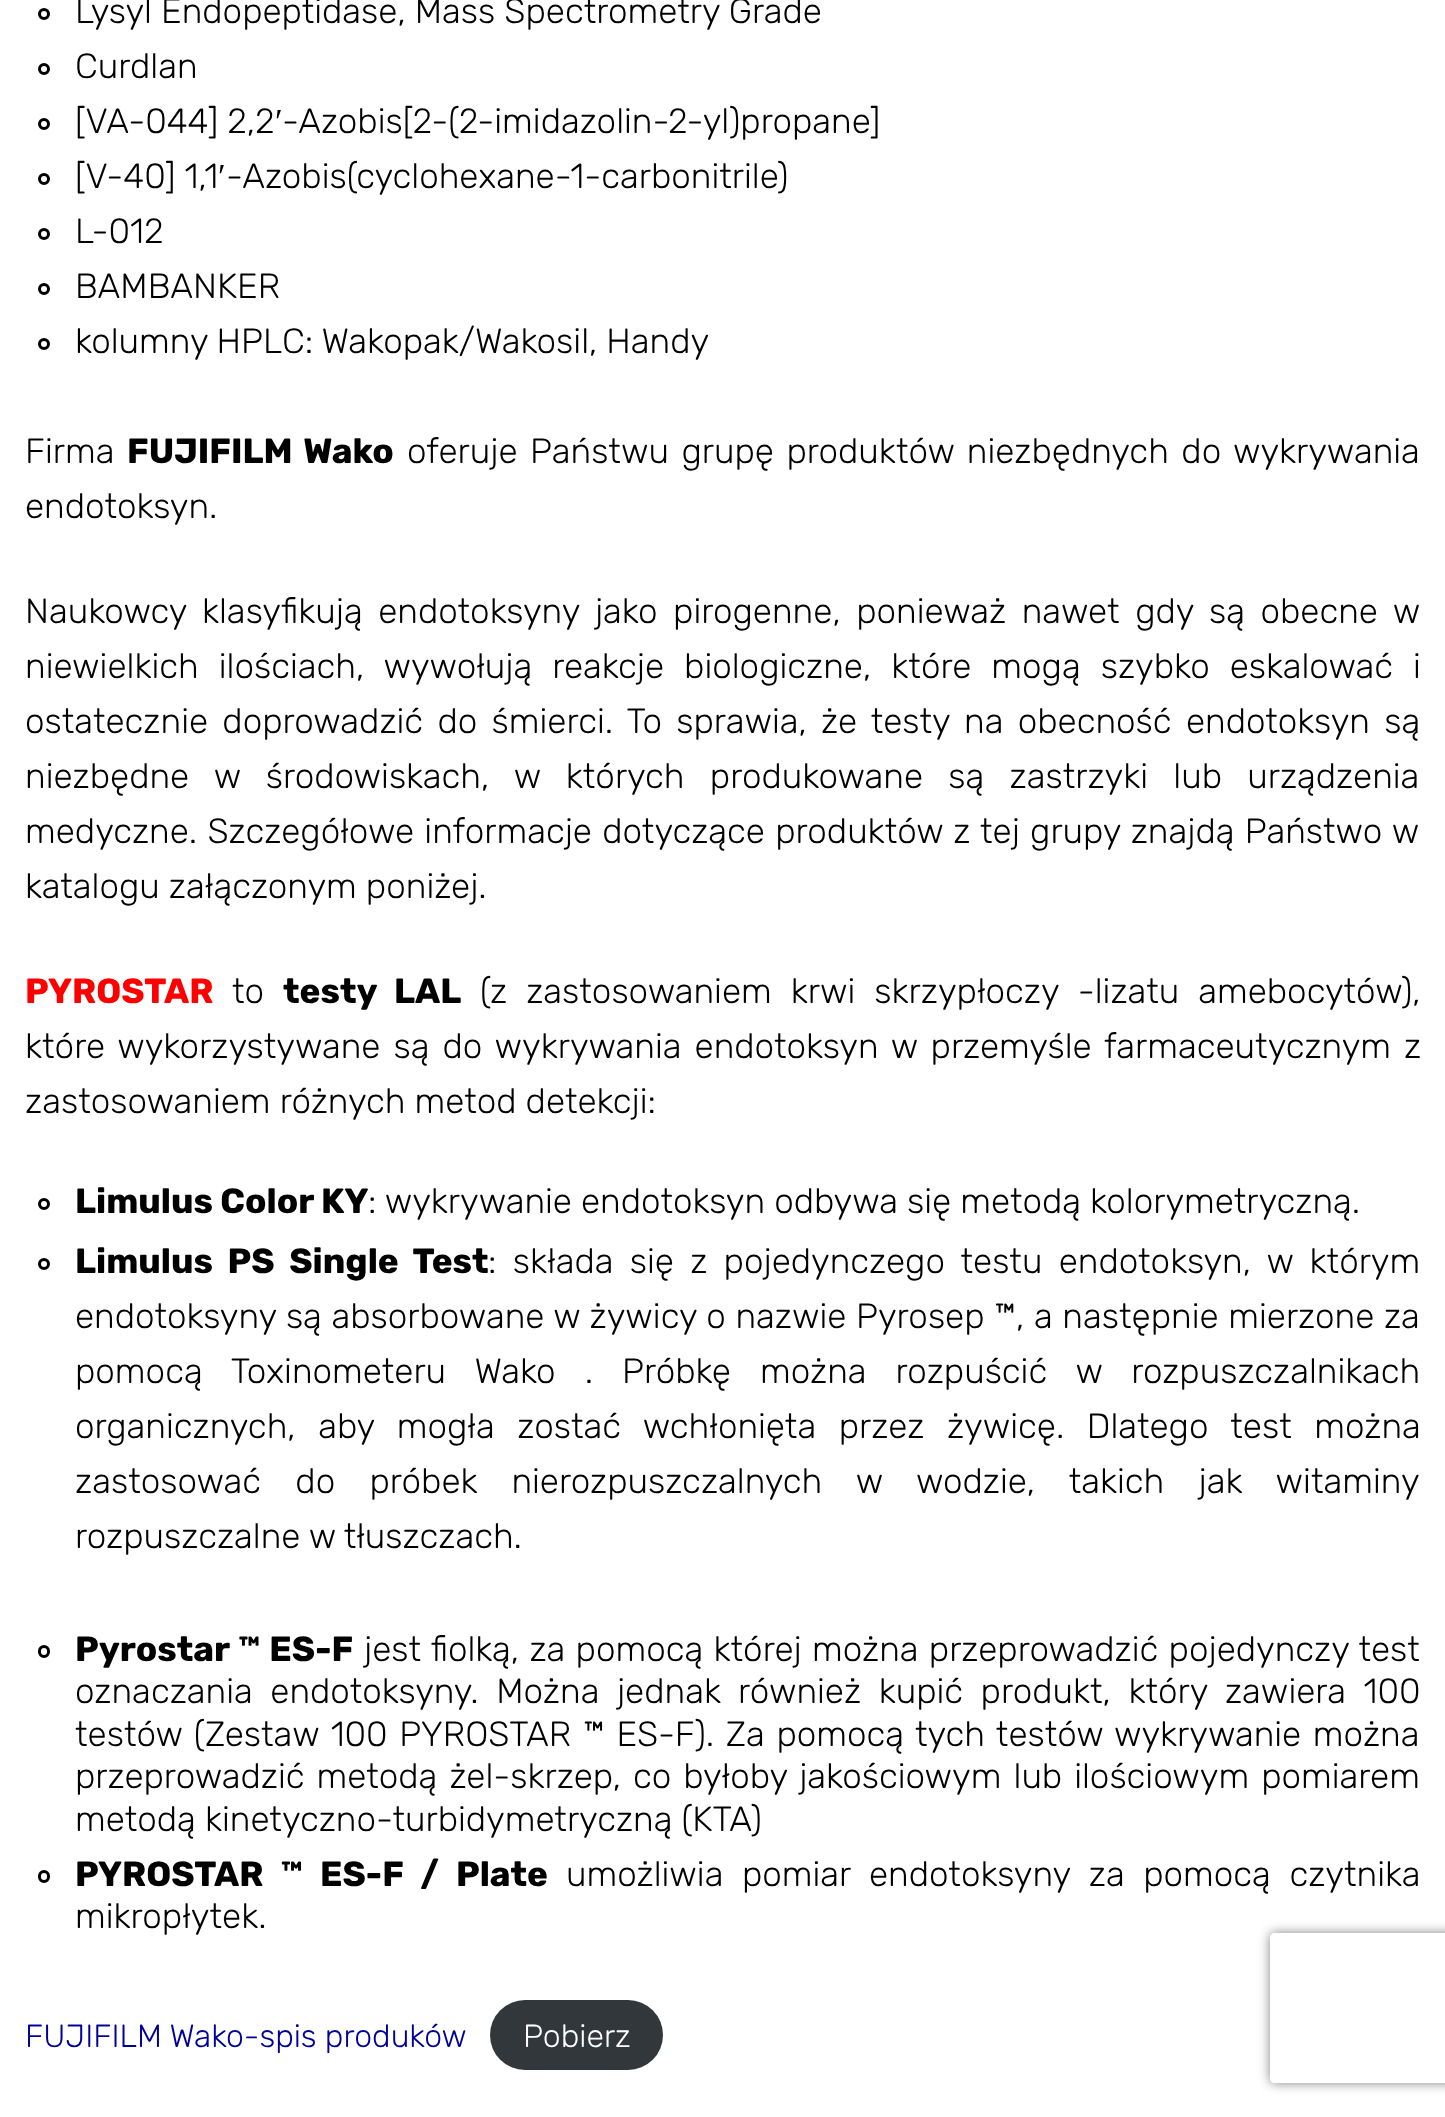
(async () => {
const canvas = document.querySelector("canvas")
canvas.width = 1445
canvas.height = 2117
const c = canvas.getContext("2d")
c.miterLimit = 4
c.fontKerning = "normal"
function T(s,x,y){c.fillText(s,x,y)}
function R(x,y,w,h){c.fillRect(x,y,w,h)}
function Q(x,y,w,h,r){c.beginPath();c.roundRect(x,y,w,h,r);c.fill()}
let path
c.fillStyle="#fff"
R(0,0,1445,2117)
c.beginPath()
c.arc(44,14,4.5,0,7)
c.strokeStyle="#010101"
c.lineWidth=3
c.stroke()
c.font="300 35px Rubik"
c.fillStyle="#010101"
T("Lysyl Endopeptidase, Mass Spectrometry Grade",75,23)
c.beginPath()
c.arc(44,69,4.5,0,7)
c.stroke()
T("Curdlan",75,78)
T("[VA-044] 2,2",75,133)
c.font="35px Liberation Serif"
T("′",275,133)
c.font="300 35px Rubik"
T("-Azobis[2-(2-imidazolin-2-yl)propane]",282,133)
c.beginPath()
c.arc(44,124,4.5,0,7)
c.stroke()
T("[V-40] 1,1",75,188)
c.font="35px Liberation Serif"
T("′",218,188)
c.font="300 35px Rubik"
T("-Azobis(cyclohexane-1-carbonitrile)",226,188)
c.beginPath()
c.arc(44,179,4.5,0,7)
c.stroke()
c.beginPath()
c.arc(44,234,4.5,0,7)
c.stroke()
T("L-012",75,243)
c.beginPath()
c.arc(44,289,4.5,0,7)
c.stroke()
T("BAMBANKER",75,298)
c.beginPath()
c.arc(44,344,4.5,0,7)
c.stroke()
T("kolumny HPLC: Wakopak/Wakosil, Handy",75,353)
T("Firma",25,463)
c.wordSpacing="3.5px"
c.font="bold 35px Rubik"
T("FUJIFILM Wako",127,463)
c.font="300 35px Rubik"
T("oferuje Państwu grupę produktów niezbędnych do wykrywania",407,463)
c.wordSpacing="0px"
T("endotoksyn.",25,518)
c.wordSpacing="6.5px"
T("Naukowcy klasyfikują endotoksyny jako pirogenne, ponieważ nawet gdy są obecne w",25,623)
c.wordSpacing="11px"
T("niewielkich ilościach, wywołują reakcje biologiczne, które mogą szybko eskalować i",25,678)
c.wordSpacing="5.25px"
T("ostatecznie doprowadzić do śmierci. To sprawia, że testy na obecność endotoksyn są",25,733)
c.wordSpacing="16.25px"
T("niezbędne w środowiskach, w których produkowane są zastrzyki lub urządzenia",25,788)
c.wordSpacing="1.25px"
T("medyczne. Szczegółowe informacje dotyczące produktów z tej grupy znajdą Państwo w",25,843)
c.wordSpacing="0px"
T("katalogu załączonym poniżej.",25,898)
c.font="bold 35px Rubik"
c.fillStyle="#f00"
T("PYROSTAR",25,1003)
c.font="300 35px Rubik"
c.fillStyle="#010101"
T("to",232,1003)
c.wordSpacing="10px"
c.font="bold 35px Rubik"
T("testy LAL",283,1003)
c.font="300 35px Rubik"
T("(z zastosowaniem krwi skrzypłoczy -lizatu amebocytów),",480,1003)
c.wordSpacing="4px"
T("które wykorzystywane są do wykrywania endotoksyn w przemyśle farmaceutycznym z",25,1058)
c.wordSpacing="0px"
T("zastosowaniem różnych metod detekcji:",25,1113)
c.beginPath()
c.arc(44,1204,4.5,0,7)
c.stroke()
c.font="bold 35px Rubik"
T("Limulus Color KY",75,1213)
c.font="300 35px Rubik"
T(": wykrywanie endotoksyn odbywa się metodą kolorymetryczną.",368,1213)
c.beginPath()
c.arc(44,1264,4.5,0,7)
c.stroke()
c.wordSpacing="7.25px"
c.font="bold 35px Rubik"
T("Limulus PS Single Test",75,1273)
c.font="300 35px Rubik"
T(": składa się z pojedynczego testu endotoksyn, w którym",488,1273)
c.wordSpacing="0.6px"
T("endotoksyny są absorbowane w żywicy o nazwie Pyrosep ™, a następnie mierzone za",75,1328)
c.wordSpacing="20px"
T("pomocą Toxinometeru Wako . Próbkę można rozpuścić w rozpuszczalnikach",75,1383)
c.wordSpacing="13.5px"
T("organicznych, aby mogła zostać wchłonięta przez żywicę. Dlatego test można",75,1438)
c.wordSpacing="25.25px"
T("zastosować do próbek nierozpuszczalnych w wodzie, takich jak witaminy",75,1493)
c.wordSpacing="0px"
T("rozpuszczalne w tłuszczach.",75,1548)
c.beginPath()
c.roundRect(39.5,1646.5,9,10,4.5)
c.stroke()
c.wordSpacing="1.25px"
c.font="bold 35px Rubik"
T("Pyrostar ™ ES-F",75,1661)
c.font="300 35px Rubik"
T("jest fiolką, za pomocą której można przeprowadzić pojedynczy test",364,1661)
c.wordSpacing="8.5px"
T("oznaczania endotoksyny. Można jednak również kupić produkt, który zawiera 100",75,1703)
c.wordSpacing="2.6px"
T("testów (Zestaw 100 PYROSTAR ™ ES-F). Za pomocą tych testów wykrywanie można",75,1746)
c.wordSpacing="3px"
T("przeprowadzić metodą żel-skrzep, co byłoby jakościowym lub ilościowym pomiarem",75,1788)
c.wordSpacing="0px"
T("metodą kinetyczno-turbidymetryczną (KTA)",75,1831)
c.beginPath()
c.roundRect(39.5,1871.5,9,10,4.5)
c.stroke()
c.wordSpacing="9.5px"
c.font="bold 35px Rubik"
T("PYROSTAR ™ ES-F / Plate",75,1886)
c.font="300 35px Rubik"
T("umożliwia pomiar endotoksyny za pomocą czytnika",566,1886)
c.wordSpacing="0px"
T("mikropłytek.",75,1928)
c.font="300 32px Rubik"
c.fillStyle="#009"
T("FUJIFILM Wako-spis produków",25,2047)
c.fillStyle="#32373c"
Q(490,2000,173,70,35)
c.fillStyle="#fff"
T("Pobierz",523,2047)
c.save()
path = new Path2D("M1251 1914h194v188h-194zm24 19h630c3 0 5 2 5 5v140c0 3-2 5-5 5h-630c-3 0-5-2-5-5v-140c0-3 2-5 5-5z")
c.clip(path,"evenodd")
c.fillStyle="#808080"
c.filter="blur(6px)"
c.beginPath()
c.roundRect(1270,1933,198,150,5)
c.fill()
c.filter="none"
c.restore()
})()
